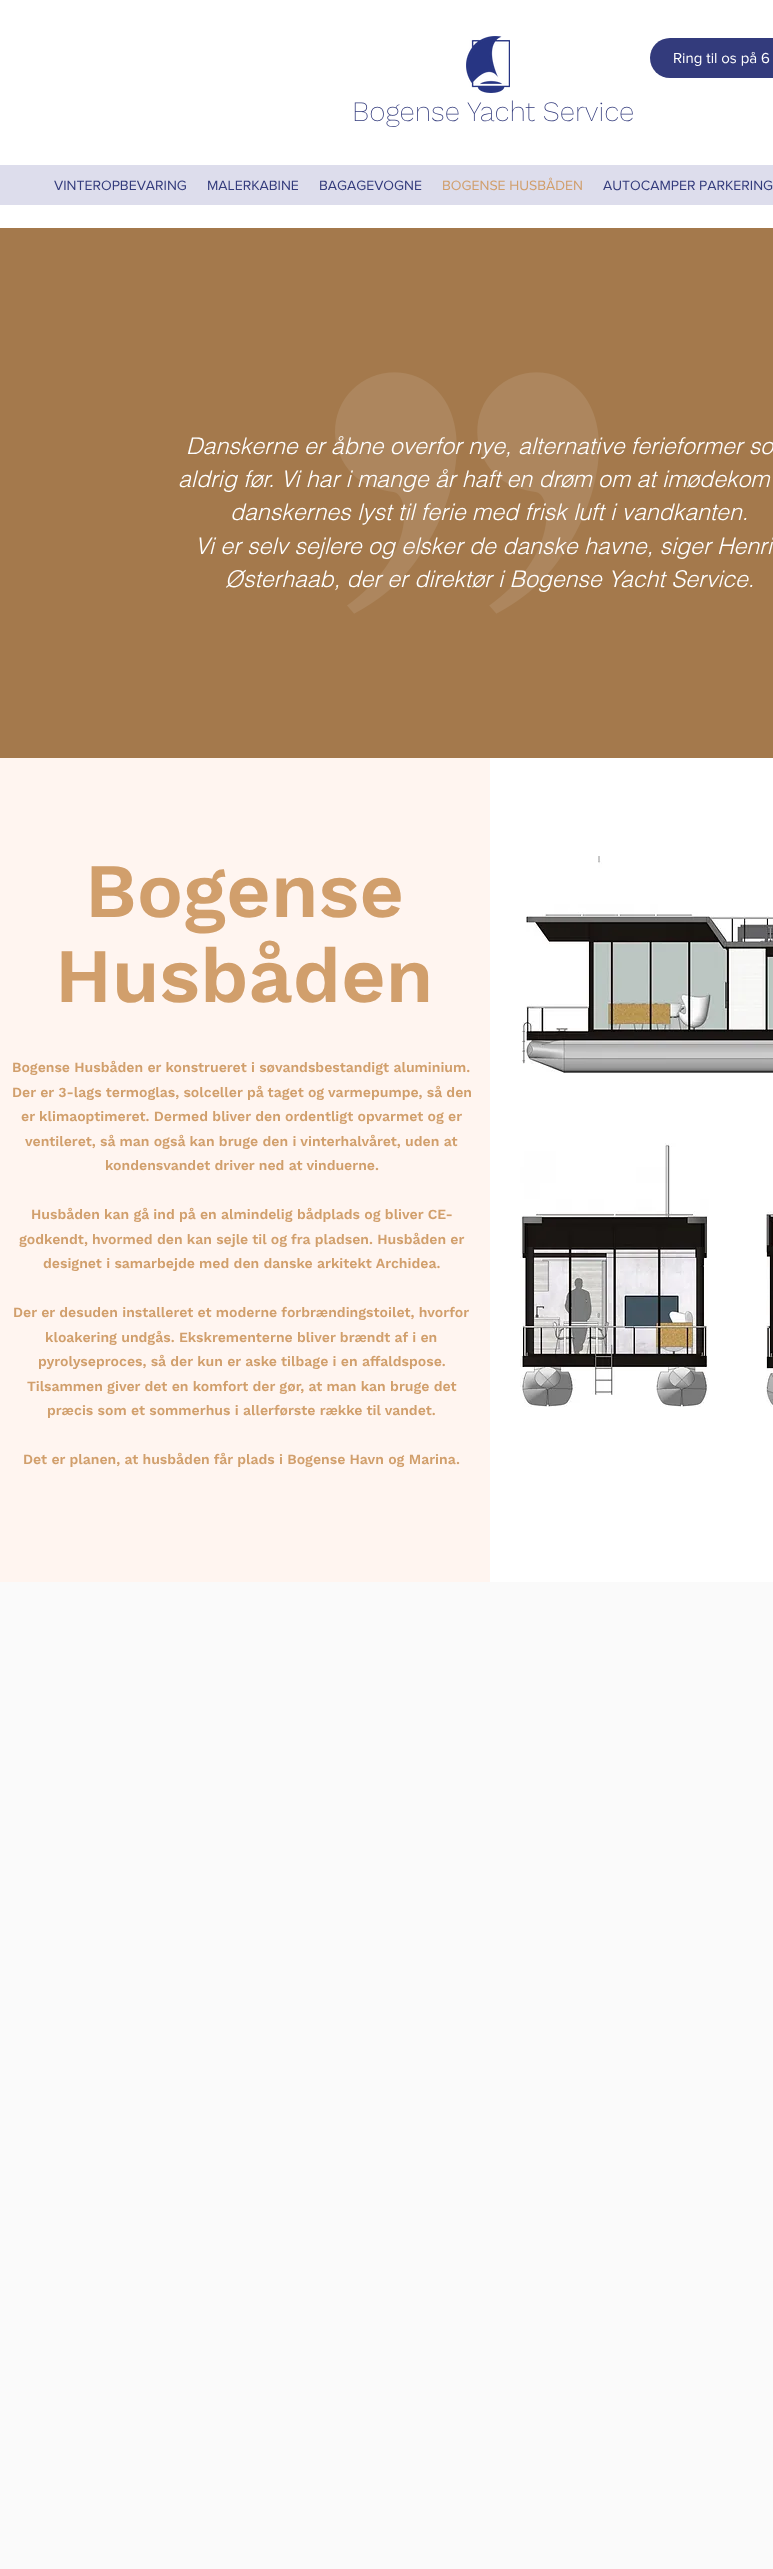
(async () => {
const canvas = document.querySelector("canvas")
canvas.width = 773
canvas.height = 2569
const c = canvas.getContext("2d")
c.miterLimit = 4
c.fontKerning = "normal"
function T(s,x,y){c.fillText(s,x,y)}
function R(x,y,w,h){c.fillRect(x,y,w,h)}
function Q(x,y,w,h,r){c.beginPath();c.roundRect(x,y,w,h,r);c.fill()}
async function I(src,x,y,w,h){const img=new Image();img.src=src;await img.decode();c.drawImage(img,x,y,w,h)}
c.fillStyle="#fff"
R(0,0,773,2569)
c.fillStyle="#333b7c"
Q(650,38,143,40,20)
c.font="15px 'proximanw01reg'"
c.fillStyle="#fff"
T("Ring til os på 6",673,63)
await I("1.png",466,36,44,57)
c.font="200 28px Work Sans"
c.fillStyle="#333b7c"
T("Bogense Yacht Service",352,121)
c.fillStyle="#ddddec"
R(0,165,773,40)
c.font="14px 'proximanw01reg'"
c.fillStyle="#333b7c"
T("VINTEROPBEVARING",54,190)
T("MALERKABINE",207,190)
T("BAGAGEVOGNE",319,190)
c.fillStyle="#d19f6c"
T("BOGENSE HUSBÅDEN",442,190)
c.fillStyle="#333b7c"
T("AUTOCAMPER PARKERING",603,190)
c.fillStyle="#a4794c"
R(0,228,773,530)
await I("2.png",335,372,264,242)
c.font="italic 300 23px helvetica"
c.fillStyle="#fff"
T("Danskerne er åbne overfor nye, alternative ferieformer so",186,454)
T("aldrig før. Vi har i mange år haft en drøm om at imødekom",178,487)
T("danskernes lyst til ferie med frisk luft i vandkanten.",230,520)
T("Vi er selv sejlere og elsker de danske havne, siger Henri",195,554)
T("Østerhaab, der er direktør i Bogense Yacht Service.",225,587)
c.fillStyle="#fff5f0"
R(0,758,490,824)
c.font="600 77px Work Sans"
c.fillStyle="#d19f6c"
T("Bogense",85,917)
T("Husbåden",55,1002)
c.font="600 14px Work Sans"
T("Bogense Husbåden er konstrueret i søvandsbestandigt aluminium.",12,1072)
T("Der er 3-lags termoglas, solceller på taget og varmepumpe, så den",12,1097)
T("er klimaoptimeret. Dermed bliver den ordentligt opvarmet og er",21,1121)
T("ventileret, så man også kan bruge den i vinterhalvåret, uden at",25,1146)
T("kondensvandet driver ned at vinduerne.",105,1170)
T("Husbåden kan gå ind på en almindelig bådplads og bliver CE-",31,1219)
T("godkendt, hvormed den kan sejle til og fra pladsen. Husbåden er",19,1244)
T("designet i samarbejde med den danske arkitekt Archidea.",43,1268)
T("Der er desuden installeret et moderne forbrændingstoilet, hvorfor",13,1317)
T("kloakering undgås. Ekskrementerne bliver brændt af i en",45,1342)
T("pyrolyseproces, så der kun er aske tilbage i en affaldspose.",38,1366)
T("Tilsammen giver det en komfort der gør, at man kan bruge det",27,1391)
T("præcis som et sommerhus i allerførste række til vandet.",47,1415)
T("Det er planen, at husbåden får plads i Bogense Havn og Marina.",23,1464)
await I("3.png",522,856,251,217)
await I("4.png",520,1143,189,264)
await I("5.png",766,1211,7,196)
c.fillStyle="#fafafa"
R(0,1582,773,987)
})()
